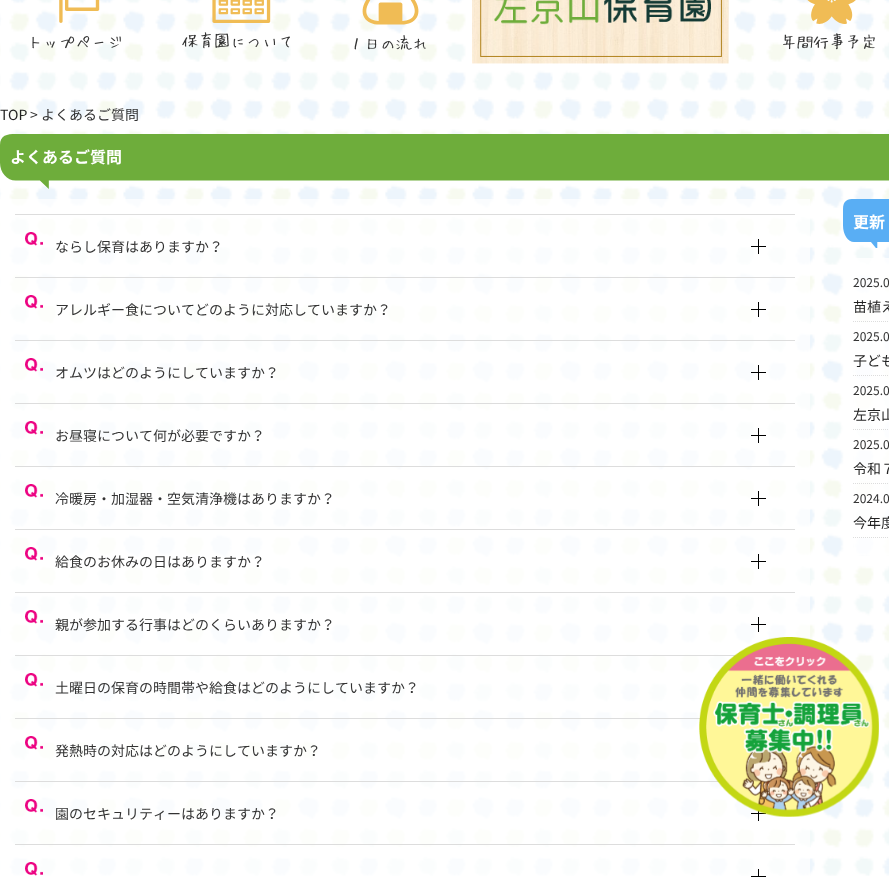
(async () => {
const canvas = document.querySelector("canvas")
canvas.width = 889
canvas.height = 877
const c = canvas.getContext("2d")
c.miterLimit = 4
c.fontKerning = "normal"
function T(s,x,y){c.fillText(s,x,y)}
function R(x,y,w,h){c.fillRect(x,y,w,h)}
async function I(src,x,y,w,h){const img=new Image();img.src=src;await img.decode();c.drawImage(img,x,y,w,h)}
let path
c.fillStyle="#fff"
R(0,0,889,877)
await I("1.png",0,0,889,876)
await I("2.png",32,0,89,49)
await I("3.png",182,0,108,49)
await I("4.png",354,0,72,50)
await I("5.png",472,0,257,64)
await I("6.png",783,0,92,50)
c.font="14px Noto Sans JP"
c.fillStyle="#222"
T("TOP",0,120)
c.fillStyle="#333"
T("> よくあるご質問",30,120)
await I("7.png",0,134,889,55)
c.font="bold 16px Noto Sans JP"
c.fillStyle="#fff"
T("よくあるご質問",10,163)
c.fillStyle="#ffffffb3"
R(0,199,810,677)
c.fillStyle="#ddd"
R(15,214,780,1)
await I("8.png",25,232,18,14)
c.font="14px Noto Sans JP"
c.fillStyle="#333"
T("ならし保育はありますか？",55,252)
c.fillStyle="#000"
R(751,246,15,1)
R(758,239,1,15)
c.fillStyle="#ddd"
R(15,277,780,1)
await I("9.png",25,295,18,14)
c.fillStyle="#333"
T("アレルギー食についてどのように対応していますか？",55,315)
c.fillStyle="#000"
R(751,309,15,1)
R(758,302,1,15)
c.fillStyle="#ddd"
R(15,340,780,1)
await I("10.png",25,358,18,14)
c.fillStyle="#333"
T("オムツはどのようにしていますか？",55,378)
c.fillStyle="#000"
R(751,372,15,1)
R(758,365,1,15)
c.fillStyle="#ddd"
R(15,403,780,1)
await I("11.png",25,421,18,14)
c.fillStyle="#333"
T("お昼寝について何が必要ですか？",55,441)
c.fillStyle="#000"
R(751,435,15,1)
R(758,428,1,15)
c.fillStyle="#ddd"
R(15,466,780,1)
await I("12.png",25,484,18,14)
c.fillStyle="#333"
T("冷暖房・加湿器・空気清浄機はありますか？",55,504)
c.fillStyle="#000"
R(751,498,15,1)
R(758,491,1,15)
c.fillStyle="#ddd"
R(15,529,780,1)
await I("13.png",25,547,18,14)
c.fillStyle="#333"
T("給食のお休みの日はありますか？",55,567)
c.fillStyle="#000"
R(751,561,15,1)
R(758,554,1,15)
c.fillStyle="#ddd"
R(15,592,780,1)
await I("14.png",25,610,18,14)
c.fillStyle="#333"
T("親が参加する行事はどのくらいありますか？",55,630)
c.fillStyle="#000"
R(751,624,15,1)
R(758,617,1,15)
c.fillStyle="#ddd"
R(15,655,722,1)
await I("15.png",25,673,18,14)
c.fillStyle="#333"
T("土曜日の保育の時間帯や給食はどのようにしていますか？",55,693)
c.fillStyle="#ddd"
R(15,718,685,1)
await I("16.png",25,736,18,14)
c.fillStyle="#333"
T("発熱時の対応はどのようにしていますか？",55,756)
c.fillStyle="#ddd"
R(15,781,704,1)
await I("17.png",25,799,18,14)
c.fillStyle="#333"
T("園のセキュリティーはありますか？",55,819)
c.fillStyle="#000"
R(751,813,15,1)
R(758,806,1,15)
c.fillStyle="#ddd"
R(15,844,780,1)
await I("18.png",25,862,18,14)
c.fillStyle="#000"
R(751,876,15,1)
R(758,869,1,8)
await I("19.png",843,199,46,49)
c.font="bold 16px Noto Sans JP"
c.fillStyle="#fff"
T("更新",853,228)
c.fillStyle="#ffffffcc"
R(854,258,35,297)
path = new Path2D("M853 321.5h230m-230 54h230")
c.strokeStyle="#ddd"
c.setLineDash([1,1])
c.stroke(path)
c.font="12px Noto Sans JP"
c.fillStyle="#333"
T("2025.0",853,287)
c.font="14px Noto Sans JP"
c.fillStyle="#222"
T("苗植え",853,312)
c.font="12px Noto Sans JP"
c.fillStyle="#333"
T("2025.0",853,341)
c.font="14px Noto Sans JP"
c.fillStyle="#222"
T("子ども",853,366)
path = new Path2D("M853 429.5h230m-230 54h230")
c.stroke(path)
c.font="12px Noto Sans JP"
c.fillStyle="#333"
T("2025.0",853,395)
c.font="14px Noto Sans JP"
c.fillStyle="#222"
T("左京山",853,420)
c.font="12px Noto Sans JP"
c.fillStyle="#333"
T("2025.0",853,449)
c.font="14px Noto Sans JP"
c.fillStyle="#222"
T("令和７",853,474)
path = new Path2D("M853 537.5h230")
c.stroke(path)
c.font="12px Noto Sans JP"
c.fillStyle="#333"
T("2024.0",853,503)
c.font="14px Noto Sans JP"
c.fillStyle="#222"
T("今年度",853,528)
await I("20.png",699,637,180,180)
})()
